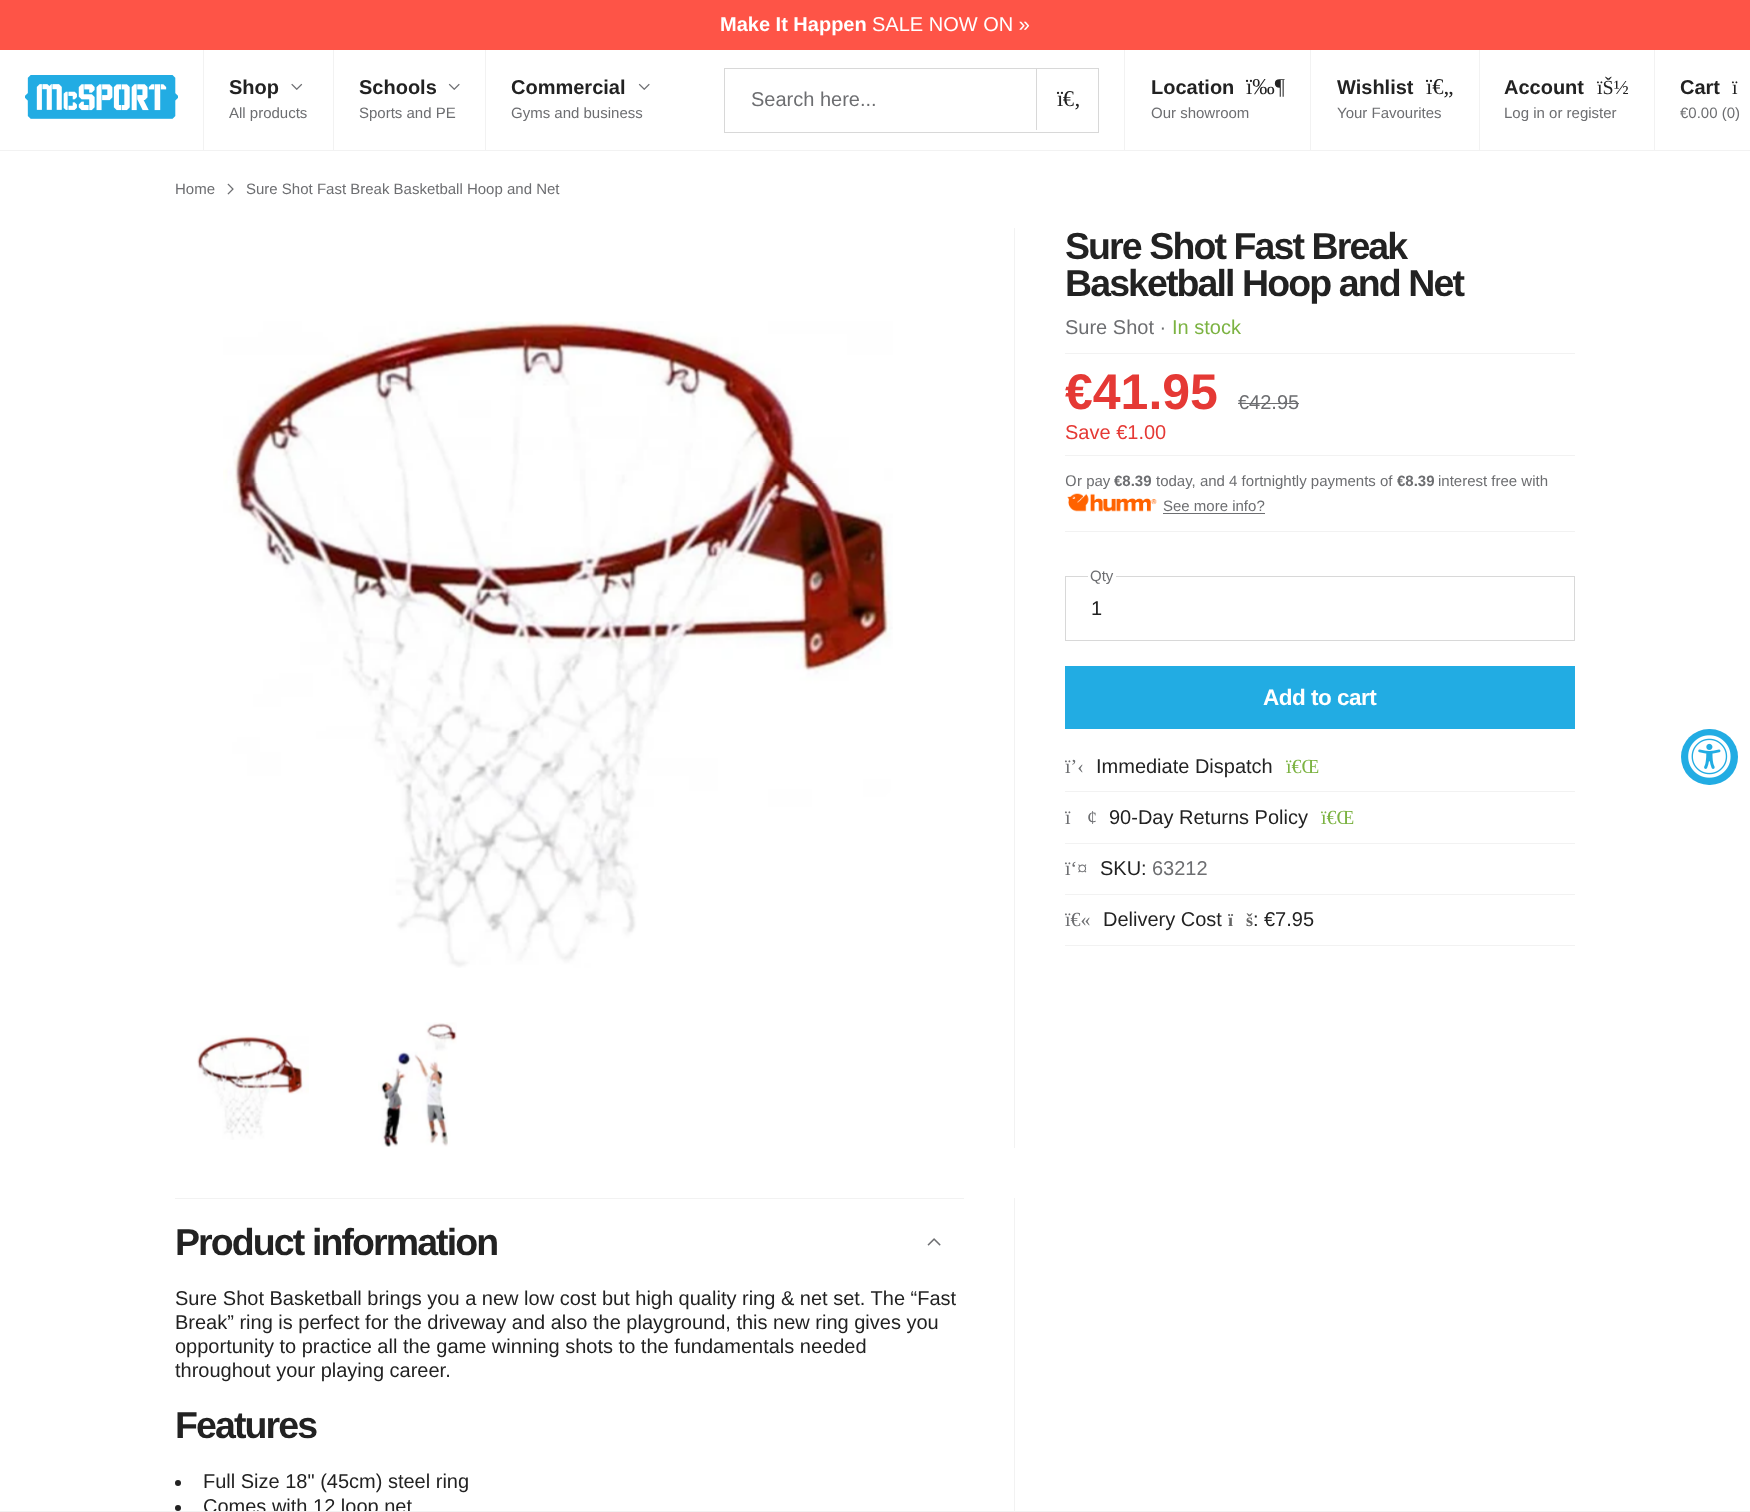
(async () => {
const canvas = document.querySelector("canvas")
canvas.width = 1750
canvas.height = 1512
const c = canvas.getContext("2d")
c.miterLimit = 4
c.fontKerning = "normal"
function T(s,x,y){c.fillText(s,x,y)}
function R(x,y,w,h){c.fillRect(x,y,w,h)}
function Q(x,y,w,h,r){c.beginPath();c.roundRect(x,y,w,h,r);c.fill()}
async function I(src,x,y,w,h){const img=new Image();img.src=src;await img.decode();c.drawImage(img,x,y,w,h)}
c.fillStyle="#fff"
R(0,0,1750,1512)
c.fillStyle="#fe5447"
R(0,0,1750,50)
c.font="bold 20px Liberation Sans"
c.fillStyle="#fff"
T("Make It Happen",720,31)
c.font="20px Liberation Sans"
T("SALE NOW ON »",872,31)
c.fillStyle="#f2f2f2"
R(0,150,1750,1)
await I("1.png",25,75,153,44)
R(203,50,1,100)
c.font="bold 20px Liberation Sans"
c.fillStyle="#222"
T("Shop",229,94)
await I("2.png",291,83,12,7)
c.font="15px Liberation Sans"
c.fillStyle="#6d6e71"
T("All products",229,118)
c.fillStyle="#f2f2f2"
R(333,50,1,100)
c.font="bold 20px Liberation Sans"
c.fillStyle="#222"
T("Schools",359,94)
await I("3.png",448,83,12,7)
c.font="15px Liberation Sans"
c.fillStyle="#6d6e71"
T("Sports and PE",359,118)
c.fillStyle="#f2f2f2"
R(485,50,1,100)
c.font="bold 20px Liberation Sans"
c.fillStyle="#222"
T("Commercial",511,94)
await I("3.png",638,83,12,7)
c.font="15px Liberation Sans"
c.fillStyle="#6d6e71"
T("Gyms and business",511,118)
c.strokeStyle="#d8d8d8"
c.strokeRect(724.5,68.5,374,64)
c.font="20px Liberation Sans"
T("Search here...",751,106)
c.fillStyle="#d8d8d8"
R(1036,68,1,62)
c.letterSpacing="-0.5px"
c.font="22.5px Liberation Serif"
c.fillStyle="#222"
T("ï€‚",1057,106)
c.fillStyle="#f2f2f2"
R(1124,50,1,100)
c.letterSpacing="0px"
c.font="bold 20px Liberation Sans"
c.fillStyle="#222"
T("Location",1151,94)
c.font="22.5px Liberation Serif"
T("ï‰¶",1246,94)
c.font="15px Liberation Sans"
c.fillStyle="#6d6e71"
T("Our showroom",1151,118)
c.fillStyle="#f2f2f2"
R(1310,50,1,100)
c.font="bold 20px Liberation Sans"
c.fillStyle="#222"
T("Wishlist",1337,94)
c.font="22.5px Liberation Serif"
T("ï€„",1426,94)
c.font="15px Liberation Sans"
c.fillStyle="#6d6e71"
T("Your Favourites",1337,118)
c.fillStyle="#f2f2f2"
R(1479,50,1,100)
c.font="bold 20px Liberation Sans"
c.fillStyle="#222"
T("Account",1504,94)
c.font="20px Liberation Serif"
T("ïŠ½",1597,94)
c.font="15px Liberation Sans"
c.fillStyle="#6d6e71"
T("Log in or register",1504,118)
c.fillStyle="#f2f2f2"
R(1654,50,1,100)
c.font="bold 20px Liberation Sans"
c.fillStyle="#222"
T("Cart",1680,94)
c.font="20px Liberation Serif"
T("ï",1732,94)
c.font="15px Liberation Sans"
c.fillStyle="#6d6e71"
T("€0.00 (0)",1680,118)
T("Home",175,194)
await I("4.png",227,183,7,12)
T("Sure Shot Fast Break Basketball Hoop and Net",246,194)
c.fillStyle="#f2f2f2"
R(1014,228,1,920)
await I("5.png",223,321,670,647)
await I("6.png",197,1035,112,105)
await I("7.png",378,1022,79,125)
c.letterSpacing="-1.9px"
c.font="bold 37.5px Liberation Sans"
c.fillStyle="#222"
T("Sure Shot Fast Break",1065,259)
T("Basketball Hoop and Net",1065,296)
c.fillStyle="#f2f2f2"
R(1065,353,510,1)
c.letterSpacing="0px"
c.font="20px Liberation Sans"
c.fillStyle="#6d6e71"
T("Sure Shot ·",1065,334)
c.fillStyle="#7cb342"
T("In stock",1172,334)
c.font="bold 50px Liberation Sans"
c.fillStyle="#e53935"
T("€41.95",1065,409)
c.font="20px Liberation Sans"
c.fillStyle="#6d6e71"
T("€42.95",1238,409)
R(1238,403,61,1)
c.fillStyle="#e53935"
T("Save €1.00",1065,439)
c.fillStyle="#f2f2f2"
R(1065,455,510,1)
R(1065,531,510,1)
c.font="15px Noto Sans"
c.fillStyle="#6d6e71"
T("O",1065,486)
c.font="15px Liberation Sans"
T("r pay",1077,486)
c.font="bold 15px Liberation Sans"
T("€8.39",1114,486)
c.font="15px Liberation Sans"
T("today, and 4 fortnightly payments of",1156,486)
c.font="bold 15px Liberation Sans"
T("€8.39",1397,486)
c.font="15px Liberation Sans"
T("interest free with",1438,486)
await I("8.png",1067,493,90,19)
T("See more info?",1163,511)
R(1163,513,102,1)
c.strokeRect(1065.5,576.5,509,64)
c.fillStyle="#fff"
R(1088,576,28,1)
c.fillStyle="#6d6e71"
T("Qty",1090,581)
c.font="20px Liberation Sans"
c.fillStyle="#222"
T("1",1091,615)
c.fillStyle="#22ace3"
R(1065,666,510,63)
c.letterSpacing="-0.5px"
c.font="bold 22.5px Liberation Sans"
c.fillStyle="#fff"
T("Add to cart",1263,705)
c.fillStyle="#f2f2f2"
R(1014,1198,1,314)
c.letterSpacing="0px"
c.font="20px Liberation Sans"
c.fillStyle="#222"
T("Comes with 12 loop net",203,1513)
c.fillStyle="#f2f2f2"
R(0,1511,1750,1)
R(1065,791,510,1)
c.font="20px Liberation Serif"
c.fillStyle="#6d6e71"
T("ï’‹",1065,773)
c.font="20px Liberation Sans"
c.fillStyle="#222"
T("Immediate Dispatch",1096,773)
c.font="20px Liberation Serif"
c.fillStyle="#7cb342"
T("ï€Œ",1286,773)
c.fillStyle="#f2f2f2"
R(1065,843,510,1)
c.fillStyle="#6d6e71"
T("ï",1065,824)
T("¢",1087,824)
c.font="20px Liberation Sans"
c.fillStyle="#222"
T("90-Day Returns Policy",1109,824)
c.font="20px Liberation Serif"
c.fillStyle="#7cb342"
T("ï€Œ",1321,824)
c.fillStyle="#f2f2f2"
R(1065,894,510,1)
c.fillStyle="#6d6e71"
T("ï‘¤",1065,875)
c.font="20px Liberation Sans"
c.fillStyle="#222"
T("SKU:",1100,875)
c.fillStyle="#6d6e71"
T("63212",1152,875)
c.fillStyle="#f2f2f2"
R(1065,945,510,1)
c.font="20px Liberation Serif"
c.fillStyle="#6d6e71"
T("ï€«",1065,926)
c.font="20px Liberation Sans"
c.fillStyle="#222"
T("Delivery Cost",1103,926)
c.font="bold 18px Liberation Serif"
c.fillStyle="#666"
T("ï",1228,926)
T("š",1246,926)
c.font="20px Liberation Sans"
c.fillStyle="#222"
T(":",1253,926)
T("€7.95",1264,926)
c.fillStyle="#f2f2f2"
R(175,1198,789,1)
c.letterSpacing="-1.9px"
c.font="bold 37.5px Liberation Sans"
c.fillStyle="#222"
T("Product information",175,1255)
await I("9.png",927,1238,14,8)
c.letterSpacing="0px"
c.font="20px Liberation Sans"
T("Sure Shot Basketball brings you a new low cost but high quality ring & net set. The “Fast",175,1305)
T("Break” ring is perfect for the driveway and also the playground, this new ring gives you",175,1329)
T("opportunity to practice all the game winning shots to the fundamentals needed",175,1353)
T("throughout your playing career.",175,1377)
c.letterSpacing="-1.9px"
c.font="bold 37.5px Liberation Sans"
T("Features",175,1438)
c.beginPath()
c.arc(178,1483,3,0,7)
c.fill()
c.letterSpacing="0px"
c.font="20px Liberation Sans"
T("Full Size 18\" (45cm) steel ring",203,1488)
c.beginPath()
c.arc(178,1508,3,0,7)
c.fill()
c.fillStyle="#22ace3"
Q(1681,729,57,56,28)
await I("10.png",1688,735,43,43)
})()
